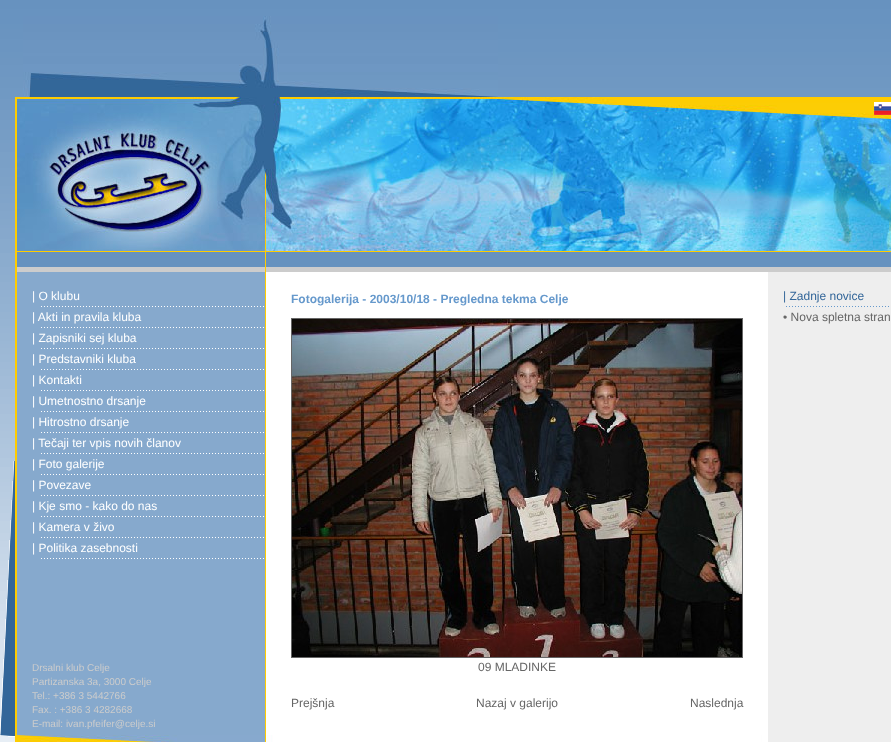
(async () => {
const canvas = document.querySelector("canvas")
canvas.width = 891
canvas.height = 742
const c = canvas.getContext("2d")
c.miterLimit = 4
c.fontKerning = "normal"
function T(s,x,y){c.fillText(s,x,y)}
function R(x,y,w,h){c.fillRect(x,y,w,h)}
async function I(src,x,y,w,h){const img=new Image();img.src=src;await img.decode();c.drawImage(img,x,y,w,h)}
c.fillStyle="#fff"
R(0,0,891,742)
await I("1.png",0,0,891,742)
await I("2.png",23,16,475,81)
await I("3.png",0,461,15,276)
await I("4.png",17,97,874,154)
c.fillStyle="#fc0"
R(15,97,2,645)
await I("5.png",874,102,17,13)
c.fillStyle="#6692bf"
R(17,252,248,15)
c.fillStyle="#fc0"
R(17,251,874,1)
R(265,251,1,16)
c.fillStyle="#6692bf"
R(266,252,625,15)
c.fillStyle="#ccc"
R(17,267,874,5)
c.fillStyle="#fc0"
R(265,267,1,463)
c.fillStyle="#86a9cd"
R(17,272,248,458)
c.font="12px Liberation Sans"
c.fillStyle="#fff"
T("| O klubu",32,300)
await I("6.png",41,306,223,1)
T("| Akti in pravila kluba",32,321)
await I("6.png",41,327,223,1)
T("| Zapisniki sej kluba",32,342)
await I("6.png",41,348,223,1)
T("| Predstavniki kluba",32,363)
await I("6.png",41,369,223,1)
T("| Kontakti",32,384)
await I("6.png",41,390,223,1)
T("| Umetnostno drsanje",32,405)
await I("6.png",41,411,223,1)
T("| Hitrostno drsanje",32,426)
await I("6.png",41,432,223,1)
T("| Tečaji ter vpis novih članov",32,447)
await I("6.png",41,453,223,1)
T("| Foto galerije",32,468)
await I("6.png",41,474,223,1)
T("| Povezave",32,489)
await I("6.png",41,495,223,1)
T("| Kje smo - kako do nas",32,510)
await I("6.png",41,516,223,1)
T("| Kamera v živo",32,531)
await I("6.png",41,537,223,1)
T("| Politika zasebnosti",32,552)
await I("6.png",41,558,223,1)
c.font="10px Liberation Sans"
c.fillStyle="#ccc"
T("Drsalni klub Celje",32,671)
T("Partizanska 3a, 3000 Celje",32,685)
T("Tel.: +386 3 5442766",32,699)
T("Fax. : +386 3 4282668",32,713)
T("E-mail: ivan.pfeifer@celje.si",32,727)
c.fillStyle="#fff"
R(266,272,502,463)
c.font="bold 12px Liberation Sans"
c.fillStyle="#69c"
T("Fotogalerija - 2003/10/18 - Pregledna tekma Celje",291,303)
c.strokeStyle="#666"
c.strokeRect(291.5,318.5,451,339)
await I("7.png",292,319,450,338)
c.font="12px Liberation Sans"
c.fillStyle="#666"
T("09 MLADINKE",478,671)
T("Prejšnja",291,707)
T("Nazaj v galerijo",476,707)
T("Naslednja",690,707)
c.fillStyle="#eee"
R(768,272,123,463)
c.fillStyle="#369"
T("| Zadnje novice",783,300)
await I("8.png",786,306,103,1)
c.fillStyle="#666"
T("• Nova spletna stran",783,321)
c.fillStyle="#86a9cd"
R(17,730,249,5)
c.fillStyle="#fc0"
R(265,730,1,5)
await I("9.png",17,735,874,7)
})()
